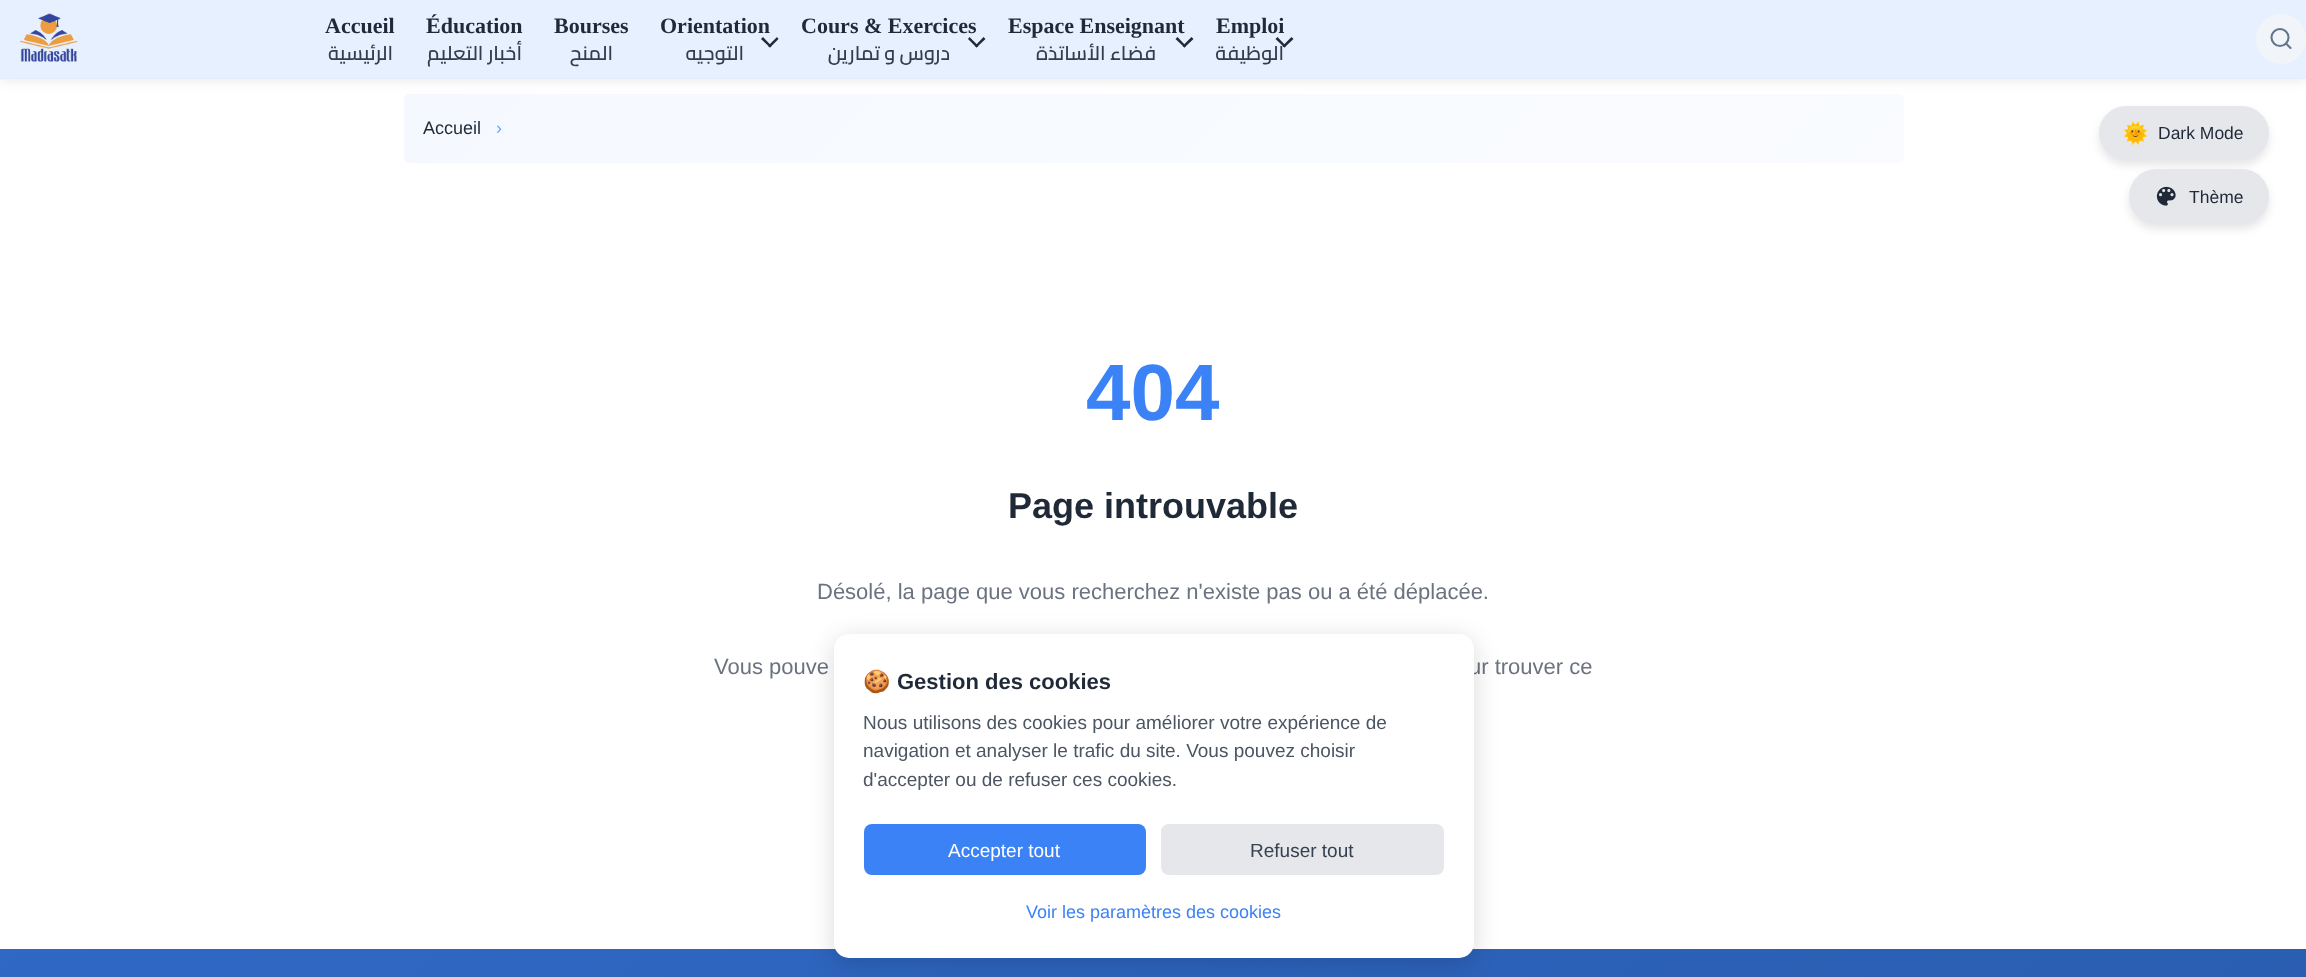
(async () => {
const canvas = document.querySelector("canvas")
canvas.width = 2306
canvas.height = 977
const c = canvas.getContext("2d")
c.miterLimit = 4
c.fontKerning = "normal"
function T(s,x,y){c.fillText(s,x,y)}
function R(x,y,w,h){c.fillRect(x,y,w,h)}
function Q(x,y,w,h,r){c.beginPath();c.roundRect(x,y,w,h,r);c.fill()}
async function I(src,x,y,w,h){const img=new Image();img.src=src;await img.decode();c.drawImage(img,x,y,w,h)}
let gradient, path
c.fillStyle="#fff"
R(0,0,2306,977)
gradient = c.createLinearGradient(762,-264,1546,520)
gradient.addColorStop(0,"#f5f9ff")
gradient.addColorStop(1,"#f9fbff")
c.fillStyle = gradient
Q(404,94,1500,69,5)
c.fillStyle="#00000014"
c.filter="blur(6px)"
c.beginPath()
c.rect(0,3,2306,78)
c.fill()
c.filter="none"
c.fillStyle="#e7f0fe"
R(0,0,2306,78)
c.fillStyle="#e6edf8"
R(0,78,2306,1)
await I("1.png",20,13,58,49)
c.font="bold 22px Liberation Serif"
c.fillStyle="#1f2937"
T("Accueil",325,33)
c.direction="rtl"
c.font="600 19.75px Cairo"
c.fillStyle="#333d4b"
T("الرئيسية",393,60)
c.direction="ltr"
c.font="bold 22px Liberation Serif"
c.fillStyle="#1f2937"
T("Éducation",426,33)
c.direction="rtl"
c.font="600 19.75px Cairo"
c.fillStyle="#333d4b"
T("أخبار التعليم",522,60)
c.direction="ltr"
c.font="bold 22px Liberation Serif"
c.fillStyle="#1f2937"
T("Bourses",554,33)
c.direction="rtl"
c.font="600 19.75px Cairo"
c.fillStyle="#333d4b"
T("المنح",613,60)
c.direction="ltr"
c.font="bold 22px Liberation Serif"
c.fillStyle="#1f2937"
T("Orientation",660,33)
path = new Path2D("M777 37l1.5 2l-8.5 8.5l-2-1.5z")
c.fill(path)
path = new Path2D("M763 37l8.5 9l-1.5 1.5l-9-8.5z")
c.fill(path)
c.direction="rtl"
c.font="600 19.75px Cairo"
c.fillStyle="#333d4b"
T("التوجيه",744,60)
c.direction="ltr"
c.font="bold 22px Liberation Serif"
c.fillStyle="#1f2937"
T("Cours & Exercices",801,33)
path = new Path2D("M983.5 37l2 2l-9 8.5l-1.5-1.5z")
c.fill(path)
path = new Path2D("M969.5 37l9 9l-2 1.5l-8.5-8.5z")
c.fill(path)
c.direction="rtl"
c.font="600 19.75px Cairo"
c.fillStyle="#333d4b"
T("دروس و تمارين",950,60)
c.direction="ltr"
c.font="bold 22px Liberation Serif"
c.fillStyle="#1f2937"
T("Espace Enseignant",1008,33)
c.direction="rtl"
c.font="600 19.75px Cairo"
c.fillStyle="#333d4b"
T("فضاء الأساتذة",1156,60)
c.fillStyle="#1f2937"
path = new Path2D("M1191.5 37l2 2l-9 8.5l-2-1.5z")
c.fill(path)
path = new Path2D("M1177.5 37l8.5 9l-1.5 1.5l-9-8.5z")
c.fill(path)
c.direction="ltr"
c.font="bold 22px Liberation Serif"
T("Emploi",1216,33)
c.direction="rtl"
c.font="600 19.75px Cairo"
c.fillStyle="#333d4b"
T("الوظيفة",1284,60)
c.fillStyle="#1f2937"
path = new Path2D("M1291.5 37l2 2l-9 8.5l-2-1.5z")
c.fill(path)
path = new Path2D("M1277.5 37l8.5 9l-1.5 1.5l-9-8.5z")
c.fill(path)
c.fillStyle="#f1f5f9"
c.beginPath()
c.arc(2281,39,25,0,7)
c.fill()
c.beginPath()
c.arc(2280,37.5,8.5,0,7)
c.strokeStyle="#64748b"
c.lineWidth=2.1
c.stroke()
path = new Path2D("M2290.5 48l-4.5-4.5")
c.lineCap="round"
c.lineJoin="round"
c.stroke(path)
c.fillStyle="#0000001a"
c.filter="blur(4px)"
c.beginPath()
c.roundRect(2099,111,170,54,27)
c.fill()
c.filter="none"
c.fillStyle="#e5e7eb"
Q(2099,106,170,54,27)
c.direction="ltr"
c.font="20px Noto Color Emoji"
c.fillStyle="#1f2937"
T("🌞",2123,140)
c.font="17.5px Liberation Sans"
T("Dark Mode",2158,139)
c.fillStyle="#0000001a"
c.filter="blur(4px)"
c.beginPath()
c.roundRect(2129,174,140,55,27.5)
c.fill()
c.filter="none"
c.fillStyle="#e5e7eb"
Q(2129,169,140,55,27.5)
await I("2.png",2156,186,20,20)
c.fillStyle="#1f2937"
T("Thème",2189,203)
c.font="18px Liberation Sans"
T("Accueil",423,134)
c.fillStyle="#60a5fa"
T("›",496,134)
c.font="bold 80px Liberation Sans"
c.fillStyle="#3b82f6"
T("404",1086,420)
c.font="bold 36px Liberation Sans"
c.fillStyle="#1f2937"
T("Page introuvable",1008,518)
c.font="22px Liberation Sans"
c.fillStyle="#6b7280"
T("Désolé, la page que vous recherchez n'existe pas ou a été déplacée.",817,599)
T("Vous pouve",714,674)
T("ur trouver ce",1469,674)
gradient = c.createLinearGradient(408,541,1898,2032)
gradient.addColorStop(0,"#2f68c5")
gradient.addColorStop(1,"#295bac")
c.fillStyle = gradient
R(0,949,2306,28)
c.fillStyle="#00000026"
c.filter="blur(12.5px)"
c.beginPath()
c.roundRect(834,639,640,324,15)
c.fill()
c.filter="none"
c.fillStyle="#fff"
Q(834,634,640,324,15)
c.font="bold 22px Noto Color Emoji"
c.fillStyle="#1f2937"
T("🍪",863,689)
c.font="bold 22px Liberation Sans"
T("Gestion des cookies",897,689)
c.font="19px Liberation Sans"
c.fillStyle="#4b5563"
T("Nous utilisons des cookies pour améliorer votre expérience de",863,729)
T("navigation et analyser le trafic du site. Vous pouvez choisir",863,757)
T("d'accepter ou de refuser ces cookies.",863,786)
c.fillStyle="#3b82f6"
Q(864,824,282,51,8)
c.fillStyle="#fff"
T("Accepter tout",948,857)
c.fillStyle="#e5e7eb"
Q(1161,824,283,51,8)
c.fillStyle="#374151"
T("Refuser tout",1250,857)
c.font="18px Liberation Sans"
c.fillStyle="#3b82f6"
T("Voir les paramètres des cookies",1026,918)
})()
